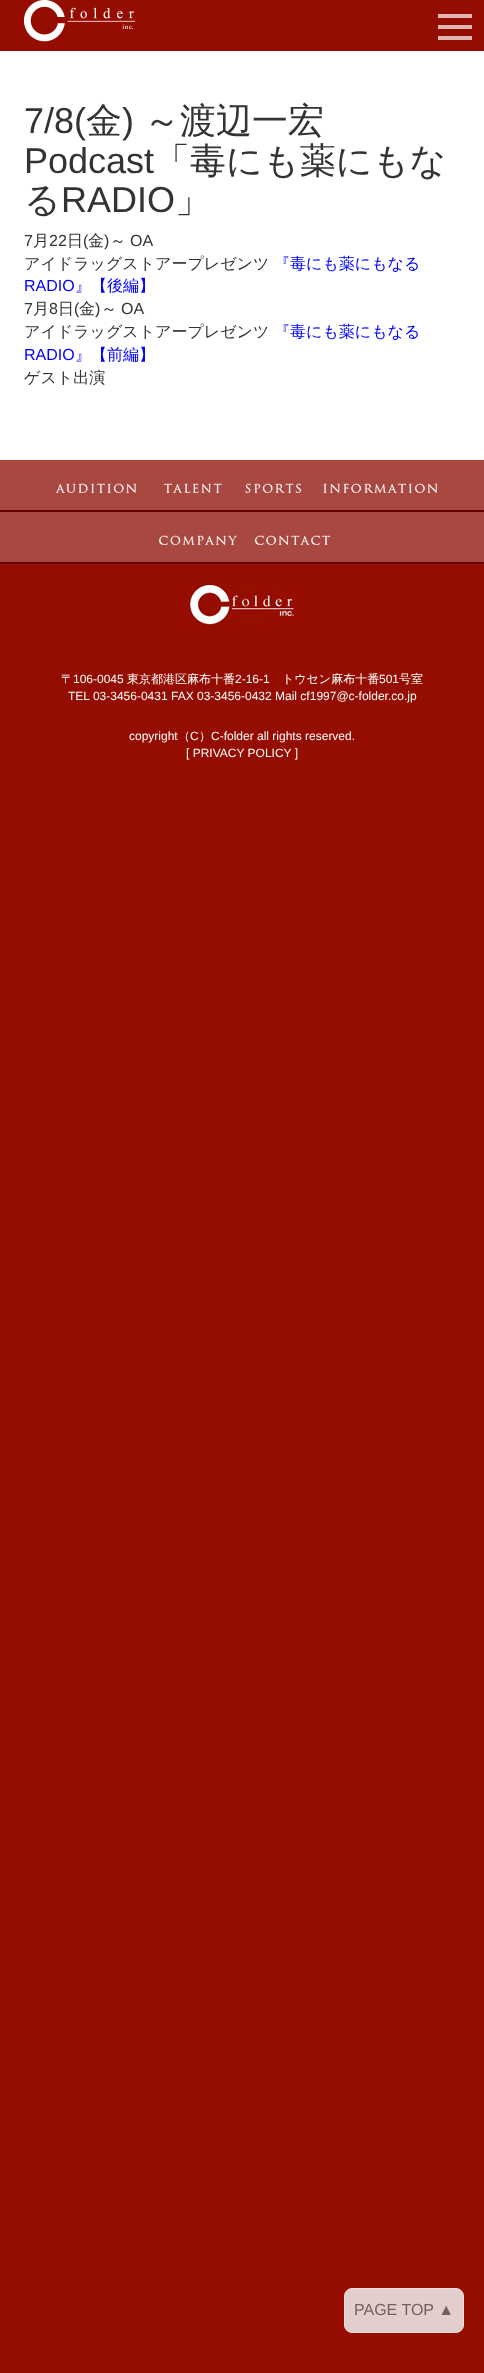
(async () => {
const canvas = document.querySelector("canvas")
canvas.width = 484
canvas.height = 2373
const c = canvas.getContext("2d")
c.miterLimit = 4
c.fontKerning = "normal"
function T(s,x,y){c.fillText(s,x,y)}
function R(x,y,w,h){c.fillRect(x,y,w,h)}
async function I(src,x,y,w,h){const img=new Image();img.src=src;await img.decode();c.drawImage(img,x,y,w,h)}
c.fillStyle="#950d00"
R(0,0,484,2373)
await I("1.png",24,0,111,42)
c.fillStyle="#dfb6b3"
R(438,14,34,4)
R(438,25,34,4)
R(438,36,34,4)
c.fillStyle="#fff"
R(0,51,484,511)
c.font="36px Liberation Sans"
c.fillStyle="#333"
T("7/8(",24,133)
c.font="500 36px WenQuanYi Zen Hei"
T("金",86,133)
c.font="36px Liberation Sans"
T(")",122,133)
c.font="500 36px WenQuanYi Zen Hei"
T("～渡辺一宏",144,133)
c.font="36px Liberation Sans"
T("Podcast",24,173)
c.font="500 36px WenQuanYi Zen Hei"
T("「毒にも薬にもな",154,173)
T("る",24,212)
c.font="36px Liberation Sans"
T("RADIO",61,212)
c.font="500 36px WenQuanYi Zen Hei"
T("」",175,212)
c.font="16px Liberation Sans"
T("7",24,246)
c.font="500 16px WenQuanYi Zen Hei"
T("月",33,246)
c.font="16px Liberation Sans"
T("22",49,246)
c.font="500 16px WenQuanYi Zen Hei"
T("日",67,246)
c.font="16px Liberation Sans"
T("(",83,246)
c.font="500 16px WenQuanYi Zen Hei"
T("金",88,246)
c.font="16px Liberation Sans"
T(")",104,246)
c.font="500 16px WenQuanYi Zen Hei"
T("～",110,246)
c.font="16px Liberation Sans"
T("OA",130,246)
c.font="500 16px WenQuanYi Zen Hei"
T("アイドラッグストアープレゼンツ",24,269)
c.fillStyle="#00f"
T("『毒にも薬にもなる",274,269)
c.font="16px Liberation Sans"
T("RADIO",24,291)
c.font="500 16px WenQuanYi Zen Hei"
T("』【後編】",75,291)
c.font="16px Liberation Sans"
c.fillStyle="#333"
T("7",24,314)
c.font="500 16px WenQuanYi Zen Hei"
T("月",33,314)
c.font="16px Liberation Sans"
T("8",49,314)
c.font="500 16px WenQuanYi Zen Hei"
T("日",58,314)
c.font="16px Liberation Sans"
T("(",74,314)
c.font="500 16px WenQuanYi Zen Hei"
T("金",79,314)
c.font="16px Liberation Sans"
T(")",95,314)
c.font="500 16px WenQuanYi Zen Hei"
T("～",101,314)
c.font="16px Liberation Sans"
T("OA",121,314)
c.font="500 16px WenQuanYi Zen Hei"
T("アイドラッグストアープレゼンツ",24,337)
c.fillStyle="#00f"
T("『毒にも薬にもなる",274,337)
c.font="16px Liberation Sans"
T("RADIO",24,360)
c.font="500 16px WenQuanYi Zen Hei"
T("』【前編】",75,360)
c.fillStyle="#333"
T("ゲスト出演",24,383)
await I("2.png",0,460,484,104)
await I("3.png",55,483,82,10)
await I("4.png",163,483,59,10)
await I("5.png",245,483,57,10)
await I("6.png",323,483,115,10)
await I("7.png",159,535,78,10)
await I("8.png",254,535,76,10)
await I("9.png",187,584,111,42)
c.font="500 12px WenQuanYi Zen Hei"
c.fillStyle="#fff"
T("〒",61,683)
c.font="12px Liberation Sans"
T("106-0045",73,683)
c.font="500 12px WenQuanYi Zen Hei"
T("東京都港区麻布十番",127,683)
c.font="12px Liberation Sans"
T("2-16-1",235,683)
c.font="500 12px WenQuanYi Zen Hei"
T("トウセン麻布十番",282,683)
c.font="12px Liberation Sans"
T("501",379,683)
c.font="500 12px WenQuanYi Zen Hei"
T("号室",399,683)
c.font="12px Liberation Sans"
T("TEL 03-3456-0431 FAX 03-3456-0432 Mail cf1997@c-folder.co.jp",68,700)
T("copyright",129,740)
c.font="500 12px WenQuanYi Zen Hei"
T("（",178,740)
c.font="12px Liberation Sans"
T("C",190,740)
c.font="500 12px WenQuanYi Zen Hei"
T("）",199,740)
c.font="12px Liberation Sans"
T("C-folder all rights reserved.",211,740)
T("[ PRIVACY POLICY ]",186,757)
c.fillStyle="#e2cfcd"
c.beginPath()
c.roundRect(344.5,2288.5,119,44,7.5)
c.fill()
c.strokeStyle="#f0dddb"
c.stroke()
c.font="16px Liberation Sans"
c.fillStyle="#74615f"
T("PAGE TOP ▲",354,2315)
})()
